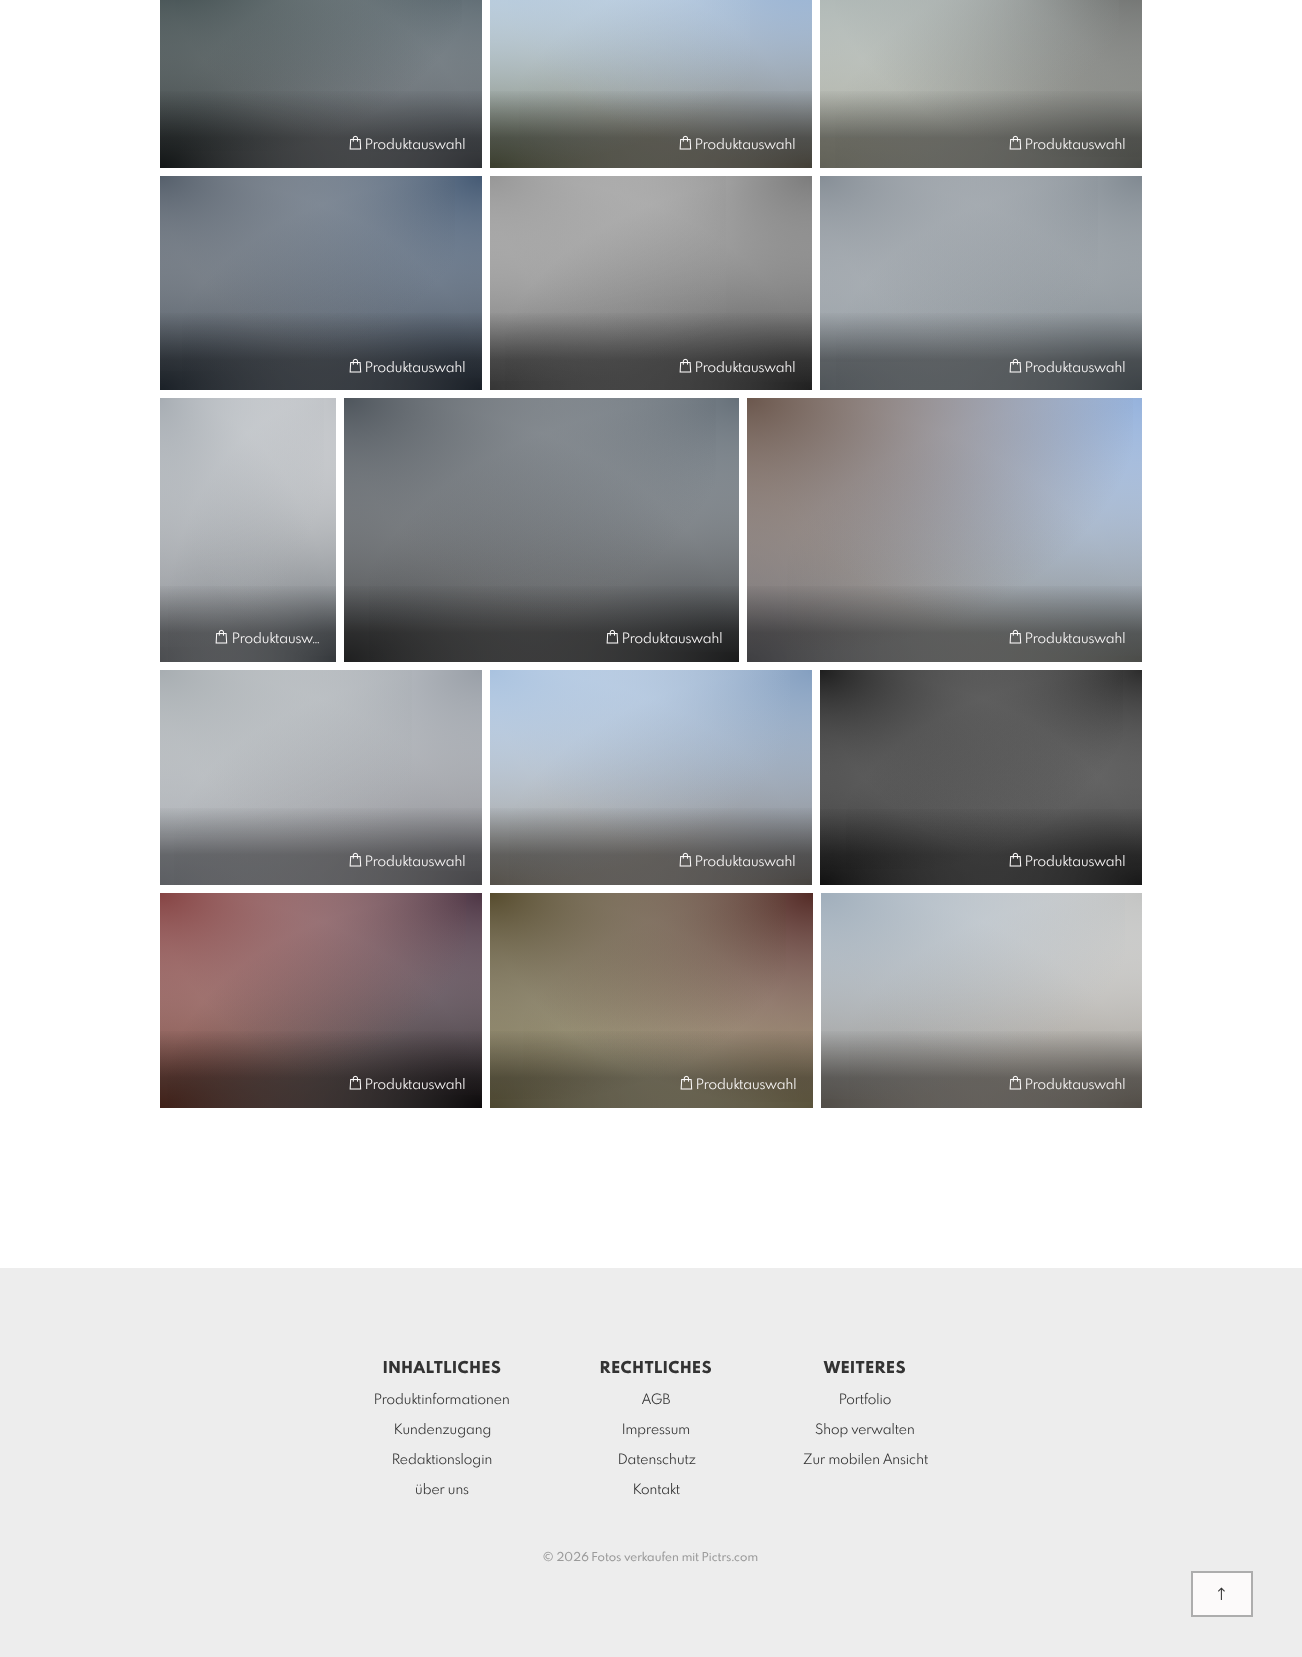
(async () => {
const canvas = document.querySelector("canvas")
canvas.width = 1302
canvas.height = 1657
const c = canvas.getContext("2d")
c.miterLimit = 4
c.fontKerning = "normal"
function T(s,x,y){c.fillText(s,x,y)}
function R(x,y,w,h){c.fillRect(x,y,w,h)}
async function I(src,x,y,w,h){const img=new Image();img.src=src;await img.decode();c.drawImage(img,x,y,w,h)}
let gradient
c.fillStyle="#ededed"
R(0,0,1302,1657)
c.fillStyle="#fff"
R(0,0,1302,1268)
gradient = c.createRadialGradient(160,251.61,0,160,251.61,322)
gradient.addColorStop(0,"#1e2425")
gradient.addColorStop(1,"#fff")
c.fillStyle = gradient
c.beginPath()
c.rect(160,0,318,168)
c.save()
c.clip()
c.scale(1,215 / 322)
c.fillRect(0,0,1302,2482)
c.restore()
gradient = c.createRadialGradient(482,251.61,0,482,251.61,322)
gradient.addColorStop(0,"#4e5258")
gradient.addColorStop(1,"#4e525800")
c.fillStyle = gradient
c.beginPath()
c.rect(180,0,302,168)
c.save()
c.clip()
c.scale(1,215 / 322)
c.fillRect(0,0,1302,2482)
c.restore()
gradient = c.createRadialGradient(482,-70.39,0,482,-70.39,322)
gradient.addColorStop(0,"#42525b")
gradient.addColorStop(1,"#42525b00")
c.fillStyle = gradient
c.beginPath()
c.rect(175,0,307,152)
c.save()
c.clip()
c.scale(1,215 / 322)
c.fillRect(0,0,1302,2482)
c.restore()
gradient = c.createRadialGradient(160,-70.39,0,160,-70.39,322)
gradient.addColorStop(0,"#283739")
gradient.addColorStop(1,"#28373900")
c.fillStyle = gradient
c.beginPath()
c.rect(160,0,302,151)
c.save()
c.clip()
c.scale(1,215 / 322)
c.fillRect(0,0,1302,2482)
c.restore()
gradient = c.createLinearGradient(321,-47,321,168)
gradient.addColorStop(0,"#00000000")
gradient.addColorStop(.63,"#00000000")
gradient.addColorStop(.86,"#00000066")
c.fillStyle = gradient
R(160,91,322,77)
await I("1.png",349,135,13,15)
c.font="14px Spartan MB"
c.fillStyle="#fcfafa"
T("Produktauswahl",365,149)
gradient = c.createRadialGradient(490,251.61,0,490,251.61,322)
gradient.addColorStop(0,"#63684d")
gradient.addColorStop(1,"#fff")
c.fillStyle = gradient
c.beginPath()
c.rect(490,0,317,168)
c.save()
c.clip()
c.scale(1,215 / 322)
c.fillRect(0,0,1302,2482)
c.restore()
gradient = c.createRadialGradient(812,251.61,0,812,251.61,322)
gradient.addColorStop(0,"#706b5d")
gradient.addColorStop(1,"#706b5d00")
c.fillStyle = gradient
c.beginPath()
c.rect(519,0,293,168)
c.save()
c.clip()
c.scale(1,215 / 322)
c.fillRect(0,0,1302,2482)
c.restore()
gradient = c.createRadialGradient(812,-70.39,0,812,-70.39,322)
gradient.addColorStop(0,"#8cacd3")
gradient.addColorStop(1,"#8cacd300")
c.fillStyle = gradient
c.beginPath()
c.rect(508,0,304,163)
c.save()
c.clip()
c.scale(1,215 / 322)
c.fillRect(0,0,1302,2482)
c.restore()
gradient = c.createRadialGradient(490,-70.39,0,490,-70.39,322)
gradient.addColorStop(0,"#afc7de")
gradient.addColorStop(1,"#afc7de00")
c.fillStyle = gradient
c.beginPath()
c.rect(490,0,260,163)
c.save()
c.clip()
c.scale(1,215 / 322)
c.fillRect(0,0,1302,2482)
c.restore()
gradient = c.createLinearGradient(651,-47,651,168)
gradient.addColorStop(0,"#00000000")
gradient.addColorStop(.63,"#00000000")
gradient.addColorStop(.86,"#00000066")
c.fillStyle = gradient
R(490,91,322,77)
await I("2.png",679,135,13,15)
c.fillStyle="#fcfafa"
T("Produktauswahl",695,149)
gradient = c.createRadialGradient(820,251.61,0,820,251.61,322)
gradient.addColorStop(0,"#a3a392")
gradient.addColorStop(1,"#fff")
c.fillStyle = gradient
c.beginPath()
c.rect(820,0,314,168)
c.save()
c.clip()
c.scale(1,215 / 322)
c.fillRect(0,0,1302,2482)
c.restore()
gradient = c.createRadialGradient(1142,251.61,0,1142,251.61,322)
gradient.addColorStop(0,"#797b73")
gradient.addColorStop(1,"#797b7300")
c.fillStyle = gradient
c.beginPath()
c.rect(835,0,307,168)
c.save()
c.clip()
c.scale(1,215 / 322)
c.fillRect(0,0,1302,2482)
c.restore()
gradient = c.createRadialGradient(1142,-70.39,0,1142,-70.39,322)
gradient.addColorStop(0,"#585b59")
gradient.addColorStop(1,"#585b5900")
c.fillStyle = gradient
c.beginPath()
c.rect(835,0,307,157)
c.save()
c.clip()
c.scale(1,215 / 322)
c.fillRect(0,0,1302,2482)
c.restore()
gradient = c.createRadialGradient(820,-70.39,0,820,-70.39,322)
gradient.addColorStop(0,"#a1acaa")
gradient.addColorStop(1,"#a1acaa00")
c.fillStyle = gradient
c.beginPath()
c.rect(820,0,299,138)
c.save()
c.clip()
c.scale(1,215 / 322)
c.fillRect(0,0,1302,2482)
c.restore()
gradient = c.createLinearGradient(981,-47,981,168)
gradient.addColorStop(0,"#00000000")
gradient.addColorStop(.63,"#00000000")
gradient.addColorStop(.86,"#00000066")
c.fillStyle = gradient
R(820,91,322,77)
await I("3.png",1009,135,13,15)
c.fillStyle="#fcfafa"
T("Produktauswahl",1025,149)
gradient = c.createRadialGradient(160,586.82,0,160,586.82,322)
gradient.addColorStop(0,"#2c3641")
gradient.addColorStop(1,"#fff")
c.fillStyle = gradient
c.beginPath()
c.rect(160,178,318,212)
c.save()
c.clip()
c.scale(1,214 / 322)
c.fillRect(0,0,1302,2494)
c.restore()
gradient = c.createRadialGradient(482,586.82,0,482,586.82,322)
gradient.addColorStop(0,"#2a3441")
gradient.addColorStop(1,"#2a344100")
c.fillStyle = gradient
c.beginPath()
c.rect(182,181,300,209)
c.save()
c.clip()
c.scale(1,214 / 322)
c.fillRect(0,0,1302,2494)
c.restore()
gradient = c.createRadialGradient(482,264.82,0,482,264.82,322)
gradient.addColorStop(0,"#455a74")
gradient.addColorStop(1,"#455a7400")
c.fillStyle = gradient
c.beginPath()
c.rect(167,176,315,202)
c.save()
c.clip()
c.scale(1,214 / 322)
c.fillRect(0,0,1302,2494)
c.restore()
gradient = c.createRadialGradient(160,264.82,0,160,264.82,322)
gradient.addColorStop(0,"#555f6b")
gradient.addColorStop(1,"#555f6b00")
c.fillStyle = gradient
c.beginPath()
c.rect(160,176,295,195)
c.save()
c.clip()
c.scale(1,214 / 322)
c.fillRect(0,0,1302,2494)
c.restore()
gradient = c.createLinearGradient(321,176,321,390)
gradient.addColorStop(0,"#00000000")
gradient.addColorStop(.63,"#00000000")
gradient.addColorStop(.86,"#00000066")
c.fillStyle = gradient
R(160,313,322,77)
await I("4.png",349,358,13,15)
c.fillStyle="#fcfafa"
T("Produktauswahl",365,372)
gradient = c.createRadialGradient(490,586.82,0,490,586.82,322)
gradient.addColorStop(0,"#595959")
gradient.addColorStop(1,"#fff")
c.fillStyle = gradient
c.beginPath()
c.rect(490,179,317,211)
c.save()
c.clip()
c.scale(1,214 / 322)
c.fillRect(0,0,1302,2494)
c.restore()
gradient = c.createRadialGradient(812,586.82,0,812,586.82,322)
gradient.addColorStop(0,"#353535")
gradient.addColorStop(1,"#35353500")
c.fillStyle = gradient
c.beginPath()
c.rect(505,181,307,209)
c.save()
c.clip()
c.scale(1,214 / 322)
c.fillRect(0,0,1302,2494)
c.restore()
gradient = c.createRadialGradient(812,264.82,0,812,264.82,322)
gradient.addColorStop(0,"#7c7c7c")
gradient.addColorStop(1,"#7c7c7c00")
c.fillStyle = gradient
c.beginPath()
c.rect(497,176,315,206)
c.save()
c.clip()
c.scale(1,214 / 322)
c.fillRect(0,0,1302,2494)
c.restore()
gradient = c.createRadialGradient(490,264.82,0,490,264.82,322)
gradient.addColorStop(0,"#979797")
gradient.addColorStop(1,"#97979700")
c.fillStyle = gradient
c.beginPath()
c.rect(490,176,236,205)
c.save()
c.clip()
c.scale(1,214 / 322)
c.fillRect(0,0,1302,2494)
c.restore()
gradient = c.createLinearGradient(651,176,651,390)
gradient.addColorStop(0,"#00000000")
gradient.addColorStop(.63,"#00000000")
gradient.addColorStop(.86,"#00000066")
c.fillStyle = gradient
R(490,313,322,77)
await I("5.png",679,358,13,15)
c.fillStyle="#fcfafa"
T("Produktauswahl",695,372)
gradient = c.createRadialGradient(820,586.82,0,820,586.82,322)
gradient.addColorStop(0,"#858e95")
gradient.addColorStop(1,"#fff")
c.fillStyle = gradient
c.beginPath()
c.rect(820,180,315,210)
c.save()
c.clip()
c.scale(1,214 / 322)
c.fillRect(0,0,1302,2494)
c.restore()
gradient = c.createRadialGradient(1142,586.82,0,1142,586.82,322)
gradient.addColorStop(0,"#646e75")
gradient.addColorStop(1,"#646e7500")
c.fillStyle = gradient
c.beginPath()
c.rect(836,181,306,209)
c.save()
c.clip()
c.scale(1,214 / 322)
c.fillRect(0,0,1302,2494)
c.restore()
gradient = c.createRadialGradient(1142,264.82,0,1142,264.82,322)
gradient.addColorStop(0,"#808991")
gradient.addColorStop(1,"#80899100")
c.fillStyle = gradient
c.beginPath()
c.rect(827,176,315,175)
c.save()
c.clip()
c.scale(1,214 / 322)
c.fillRect(0,0,1302,2494)
c.restore()
gradient = c.createRadialGradient(820,264.82,0,820,264.82,322)
gradient.addColorStop(0,"#868e96")
gradient.addColorStop(1,"#868e9600")
c.fillStyle = gradient
c.beginPath()
c.rect(820,176,278,186)
c.save()
c.clip()
c.scale(1,214 / 322)
c.fillRect(0,0,1302,2494)
c.restore()
gradient = c.createLinearGradient(981,176,981,390)
gradient.addColorStop(0,"#00000000")
gradient.addColorStop(.63,"#00000000")
gradient.addColorStop(.86,"#00000066")
c.fillStyle = gradient
R(820,313,322,77)
await I("6.png",1009,358,13,15)
c.fillStyle="#fcfafa"
T("Produktauswahl",1025,372)
gradient = c.createRadialGradient(160,441.33,0,160,441.33,176)
gradient.addColorStop(0,"#7d8085")
gradient.addColorStop(1,"#fff")
c.fillStyle = gradient
c.beginPath()
c.rect(160,403,173,259)
c.save()
c.clip()
c.scale(1,264 / 176)
c.fillRect(0,0,1302,1105)
c.restore()
gradient = c.createRadialGradient(336,441.33,0,336,441.33,176)
gradient.addColorStop(0,"#585e64")
gradient.addColorStop(1,"#585e6400")
c.fillStyle = gradient
c.beginPath()
c.rect(168,404,168,258)
c.save()
c.clip()
c.scale(1,264 / 176)
c.fillRect(0,0,1302,1105)
c.restore()
gradient = c.createRadialGradient(336,265.33,0,336,265.33,176)
gradient.addColorStop(0,"#bfc2c6")
gradient.addColorStop(1,"#bfc2c600")
c.fillStyle = gradient
c.beginPath()
c.rect(166,398,170,258)
c.save()
c.clip()
c.scale(1,264 / 176)
c.fillRect(0,0,1302,1105)
c.restore()
gradient = c.createRadialGradient(160,265.33,0,160,265.33,176)
gradient.addColorStop(0,"#a7adb3")
gradient.addColorStop(1,"#a7adb300")
c.fillStyle = gradient
c.beginPath()
c.rect(160,398,164,249)
c.save()
c.clip()
c.scale(1,264 / 176)
c.fillRect(0,0,1302,1105)
c.restore()
gradient = c.createLinearGradient(248,398,248,662)
gradient.addColorStop(0,"#00000000")
gradient.addColorStop(.7,"#00000000")
gradient.addColorStop(.89,"#00000066")
c.fillStyle = gradient
R(160,586,176,76)
await I("7.png",215,629,13,15)
c.fillStyle="#fcfafa"
T("Produktausw…",232,643)
gradient = c.createRadialGradient(344,990.49,0,344,990.49,395)
gradient.addColorStop(0,"#333435")
gradient.addColorStop(1,"#fff")
c.fillStyle = gradient
c.beginPath()
c.rect(344,401,390,261)
c.save()
c.clip()
c.scale(1,264 / 395)
c.fillRect(0,0,1302,2480)
c.restore()
gradient = c.createRadialGradient(739,990.49,0,739,990.49,395)
gradient.addColorStop(0,"#2c2d2e")
gradient.addColorStop(1,"#2c2d2e00")
c.fillStyle = gradient
c.beginPath()
c.rect(369,404,370,258)
c.save()
c.clip()
c.scale(1,264 / 395)
c.fillRect(0,0,1302,2480)
c.restore()
gradient = c.createRadialGradient(739,595.49,0,739,595.49,395)
gradient.addColorStop(0,"#667079")
gradient.addColorStop(1,"#66707900")
c.fillStyle = gradient
c.beginPath()
c.rect(353,398,386,254)
c.save()
c.clip()
c.scale(1,264 / 395)
c.fillRect(0,0,1302,2480)
c.restore()
gradient = c.createRadialGradient(344,595.49,0,344,595.49,395)
gradient.addColorStop(0,"#4e555c")
gradient.addColorStop(1,"#4e555c00")
c.fillStyle = gradient
c.beginPath()
c.rect(344,398,372,225)
c.save()
c.clip()
c.scale(1,264 / 395)
c.fillRect(0,0,1302,2480)
c.restore()
gradient = c.createLinearGradient(542,398,542,662)
gradient.addColorStop(0,"#00000000")
gradient.addColorStop(.7,"#00000000")
gradient.addColorStop(.89,"#00000066")
c.fillStyle = gradient
R(344,586,395,76)
await I("8.png",606,629,13,15)
c.fillStyle="#fcfafa"
T("Produktauswahl",622,643)
gradient = c.createRadialGradient(747,990.49,0,747,990.49,395)
gradient.addColorStop(0,"#69696e")
gradient.addColorStop(1,"#fff")
c.fillStyle = gradient
c.beginPath()
c.rect(747,402,388,260)
c.save()
c.clip()
c.scale(1,264 / 395)
c.fillRect(0,0,1302,2480)
c.restore()
gradient = c.createRadialGradient(1142,990.49,0,1142,990.49,395)
gradient.addColorStop(0,"#7d7f7a")
gradient.addColorStop(1,"#7d7f7a00")
c.fillStyle = gradient
c.beginPath()
c.rect(787,404,355,258)
c.save()
c.clip()
c.scale(1,264 / 395)
c.fillRect(0,0,1302,2480)
c.restore()
gradient = c.createRadialGradient(1142,595.49,0,1142,595.49,395)
gradient.addColorStop(0,"#95b2dc")
gradient.addColorStop(1,"#95b2dc00")
c.fillStyle = gradient
c.beginPath()
c.rect(756,398,386,258)
c.save()
c.clip()
c.scale(1,264 / 395)
c.fillRect(0,0,1302,2480)
c.restore()
gradient = c.createRadialGradient(747,595.49,0,747,595.49,395)
gradient.addColorStop(0,"#6b574d")
gradient.addColorStop(1,"#6b574d00")
c.fillStyle = gradient
c.beginPath()
c.rect(747,398,386,252)
c.save()
c.clip()
c.scale(1,264 / 395)
c.fillRect(0,0,1302,2480)
c.restore()
gradient = c.createLinearGradient(945,398,945,662)
gradient.addColorStop(0,"#00000000")
gradient.addColorStop(.7,"#00000000")
gradient.addColorStop(.89,"#00000066")
c.fillStyle = gradient
R(747,586,395,76)
await I("9.png",1009,629,13,15)
c.fillStyle="#fcfafa"
T("Produktauswahl",1025,643)
gradient = c.createRadialGradient(160,1325.44,0,160,1325.44,322)
gradient.addColorStop(0,"#999da4")
gradient.addColorStop(1,"#fff")
c.fillStyle = gradient
c.beginPath()
c.rect(160,675,314,210)
c.save()
c.clip()
c.scale(1,215 / 322)
c.fillRect(0,0,1302,2482)
c.restore()
gradient = c.createRadialGradient(482,1325.44,0,482,1325.44,322)
gradient.addColorStop(0,"#757479")
gradient.addColorStop(1,"#75747900")
c.fillStyle = gradient
c.beginPath()
c.rect(174,675,308,210)
c.save()
c.clip()
c.scale(1,215 / 322)
c.fillRect(0,0,1302,2482)
c.restore()
gradient = c.createRadialGradient(482,1003.44,0,482,1003.44,322)
gradient.addColorStop(0,"#999fa7")
gradient.addColorStop(1,"#999fa700")
c.fillStyle = gradient
c.beginPath()
c.rect(167,670,315,201)
c.save()
c.clip()
c.scale(1,215 / 322)
c.fillRect(0,0,1302,2482)
c.restore()
gradient = c.createRadialGradient(160,1003.44,0,160,1003.44,322)
gradient.addColorStop(0,"#a7adb1")
gradient.addColorStop(1,"#a7adb100")
c.fillStyle = gradient
c.beginPath()
c.rect(160,670,252,166)
c.save()
c.clip()
c.scale(1,215 / 322)
c.fillRect(0,0,1302,2482)
c.restore()
gradient = c.createLinearGradient(321,670,321,885)
gradient.addColorStop(0,"#00000000")
gradient.addColorStop(.63,"#00000000")
gradient.addColorStop(.86,"#00000066")
c.fillStyle = gradient
R(160,808,322,77)
await I("10.png",349,852,13,15)
c.fillStyle="#fcfafa"
T("Produktauswahl",365,866)
gradient = c.createRadialGradient(490,1325.44,0,490,1325.44,322)
gradient.addColorStop(0,"#8e877c")
gradient.addColorStop(1,"#fff")
c.fillStyle = gradient
c.beginPath()
c.rect(490,674,315,211)
c.save()
c.clip()
c.scale(1,215 / 322)
c.fillRect(0,0,1302,2482)
c.restore()
gradient = c.createRadialGradient(812,1325.44,0,812,1325.44,322)
gradient.addColorStop(0,"#76706b")
gradient.addColorStop(1,"#76706b00")
c.fillStyle = gradient
c.beginPath()
c.rect(509,675,303,210)
c.save()
c.clip()
c.scale(1,215 / 322)
c.fillRect(0,0,1302,2482)
c.restore()
gradient = c.createRadialGradient(812,1003.44,0,812,1003.44,322)
gradient.addColorStop(0,"#849fc0")
gradient.addColorStop(1,"#849fc000")
c.fillStyle = gradient
c.beginPath()
c.rect(497,670,315,209)
c.save()
c.clip()
c.scale(1,215 / 322)
c.fillRect(0,0,1302,2482)
c.restore()
gradient = c.createRadialGradient(490,1003.44,0,490,1003.44,322)
gradient.addColorStop(0,"#a9c2df")
gradient.addColorStop(1,"#a9c2df00")
c.fillStyle = gradient
c.beginPath()
c.rect(490,670,300,210)
c.save()
c.clip()
c.scale(1,215 / 322)
c.fillRect(0,0,1302,2482)
c.restore()
gradient = c.createLinearGradient(651,670,651,885)
gradient.addColorStop(0,"#00000000")
gradient.addColorStop(.63,"#00000000")
gradient.addColorStop(.86,"#00000066")
c.fillStyle = gradient
R(490,808,322,77)
await I("11.png",679,852,13,15)
c.fillStyle="#fcfafa"
T("Produktauswahl",695,866)
gradient = c.createRadialGradient(820,1325.44,0,820,1325.44,322)
gradient.addColorStop(0,"#1d1d1d")
gradient.addColorStop(1,"#fff")
c.fillStyle = gradient
c.beginPath()
c.rect(820,672,318,213)
c.save()
c.clip()
c.scale(1,215 / 322)
c.fillRect(0,0,1302,2482)
c.restore()
gradient = c.createRadialGradient(1142,1325.44,0,1142,1325.44,322)
gradient.addColorStop(0,"#282828")
gradient.addColorStop(1,"#28282800")
c.fillStyle = gradient
c.beginPath()
c.rect(846,675,296,210)
c.save()
c.clip()
c.scale(1,215 / 322)
c.fillRect(0,0,1302,2482)
c.restore()
gradient = c.createRadialGradient(1142,1003.44,0,1142,1003.44,322)
gradient.addColorStop(0,"#2c2c2c")
gradient.addColorStop(1,"#2c2c2c00")
c.fillStyle = gradient
c.beginPath()
c.rect(827,670,315,196)
c.save()
c.clip()
c.scale(1,215 / 322)
c.fillRect(0,0,1302,2482)
c.restore()
gradient = c.createRadialGradient(820,1003.44,0,820,1003.44,322)
gradient.addColorStop(0,"#1e1e1e")
gradient.addColorStop(1,"#1e1e1e00")
c.fillStyle = gradient
c.beginPath()
c.rect(820,670,303,199)
c.save()
c.clip()
c.scale(1,215 / 322)
c.fillRect(0,0,1302,2482)
c.restore()
gradient = c.createLinearGradient(981,670,981,885)
gradient.addColorStop(0,"#00000000")
gradient.addColorStop(.63,"#00000000")
gradient.addColorStop(.86,"#00000066")
c.fillStyle = gradient
R(820,809,322,76)
await I("12.png",1009,852,13,15)
c.fillStyle="#fcfafa"
T("Produktauswahl",1025,866)
gradient = c.createRadialGradient(160,1659.42,0,160,1659.42,322)
gradient.addColorStop(0,"#693528")
gradient.addColorStop(1,"#fff")
c.fillStyle = gradient
c.beginPath()
c.rect(160,896,318,212)
c.save()
c.clip()
c.scale(1,215 / 322)
c.fillRect(0,0,1302,2482)
c.restore()
gradient = c.createRadialGradient(482,1659.42,0,482,1659.42,322)
gradient.addColorStop(0,"#161113")
gradient.addColorStop(1,"#16111300")
c.fillStyle = gradient
c.beginPath()
c.rect(167,898,315,210)
c.save()
c.clip()
c.scale(1,215 / 322)
c.fillRect(0,0,1302,2482)
c.restore()
gradient = c.createRadialGradient(482,1337.42,0,482,1337.42,322)
gradient.addColorStop(0,"#4d3544")
gradient.addColorStop(1,"#4d354400")
c.fillStyle = gradient
c.beginPath()
c.rect(167,893,315,202)
c.save()
c.clip()
c.scale(1,215 / 322)
c.fillRect(0,0,1302,2482)
c.restore()
gradient = c.createRadialGradient(160,1337.42,0,160,1337.42,322)
gradient.addColorStop(0,"#854343")
gradient.addColorStop(1,"#85434300")
c.fillStyle = gradient
c.beginPath()
c.rect(160,893,306,187)
c.save()
c.clip()
c.scale(1,215 / 322)
c.fillRect(0,0,1302,2482)
c.restore()
gradient = c.createLinearGradient(321,893,321,1108)
gradient.addColorStop(0,"#00000000")
gradient.addColorStop(.63,"#00000000")
gradient.addColorStop(.86,"#00000066")
c.fillStyle = gradient
R(160,1031,322,77)
await I("13.png",349,1075,13,15)
c.fillStyle="#fcfafa"
T("Produktauswahl",365,1089)
gradient = c.createRadialGradient(490,1664.58,0,490,1664.58,323)
gradient.addColorStop(0,"#807751")
gradient.addColorStop(1,"#fff")
c.fillStyle = gradient
c.beginPath()
c.rect(490,896,318,212)
c.save()
c.clip()
c.scale(1,215 / 323)
c.fillRect(0,0,1302,2490)
c.restore()
gradient = c.createRadialGradient(813,1664.58,0,813,1664.58,323)
gradient.addColorStop(0,"#968a62")
gradient.addColorStop(1,"#968a6200")
c.fillStyle = gradient
c.beginPath()
c.rect(523,898,290,210)
c.save()
c.clip()
c.scale(1,215 / 323)
c.fillRect(0,0,1302,2490)
c.restore()
gradient = c.createRadialGradient(813,1341.58,0,813,1341.58,323)
gradient.addColorStop(0,"#542b26")
gradient.addColorStop(1,"#542b2600")
c.fillStyle = gradient
c.beginPath()
c.rect(497,893,316,209)
c.save()
c.clip()
c.scale(1,215 / 323)
c.fillRect(0,0,1302,2490)
c.restore()
gradient = c.createRadialGradient(490,1341.58,0,490,1341.58,323)
gradient.addColorStop(0,"#564b2d")
gradient.addColorStop(1,"#564b2d00")
c.fillStyle = gradient
c.beginPath()
c.rect(490,893,296,206)
c.save()
c.clip()
c.scale(1,215 / 323)
c.fillRect(0,0,1302,2490)
c.restore()
gradient = c.createLinearGradient(652,893,652,1108)
gradient.addColorStop(0,"#00000000")
gradient.addColorStop(.63,"#00000000")
gradient.addColorStop(.86,"#00000066")
c.fillStyle = gradient
R(490,1031,323,77)
await I("14.png",680,1075,13,15)
c.fillStyle="#fcfafa"
T("Produktauswahl",696,1089)
gradient = c.createRadialGradient(821,1654.27,0,821,1654.27,321)
gradient.addColorStop(0,"#888178")
gradient.addColorStop(1,"#fff")
c.fillStyle = gradient
c.beginPath()
c.rect(821,897,315,211)
c.save()
c.clip()
c.scale(1,215 / 321)
c.fillRect(0,0,1302,2474)
c.restore()
gradient = c.createRadialGradient(1142,1654.27,0,1142,1654.27,321)
gradient.addColorStop(0,"#888075")
gradient.addColorStop(1,"#88807500")
c.fillStyle = gradient
c.beginPath()
c.rect(849,898,293,210)
c.save()
c.clip()
c.scale(1,215 / 321)
c.fillRect(0,0,1302,2474)
c.restore()
gradient = c.createRadialGradient(1142,1333.27,0,1142,1333.27,321)
gradient.addColorStop(0,"#c3c4c3")
gradient.addColorStop(1,"#c3c4c300")
c.fillStyle = gradient
c.beginPath()
c.rect(833,893,309,209)
c.save()
c.clip()
c.scale(1,215 / 321)
c.fillRect(0,0,1302,2474)
c.restore()
gradient = c.createRadialGradient(821,1333.27,0,821,1333.27,321)
gradient.addColorStop(0,"#a0aebb")
gradient.addColorStop(1,"#a0aebb00")
c.fillStyle = gradient
c.beginPath()
c.rect(821,893,304,206)
c.save()
c.clip()
c.scale(1,215 / 321)
c.fillRect(0,0,1302,2474)
c.restore()
gradient = c.createLinearGradient(982,893,982,1108)
gradient.addColorStop(0,"#00000000")
gradient.addColorStop(.63,"#00000000")
gradient.addColorStop(.86,"#00000066")
c.fillStyle = gradient
R(821,1031,321,77)
await I("15.png",1009,1075,13,15)
c.fillStyle="#fcfafa"
T("Produktauswahl",1025,1089)
c.letterSpacing="1px"
c.font="800 16px Spartan MB"
c.fillStyle="#333"
T("INHALTLICHES",383,1373)
c.letterSpacing="0px"
c.font="14px Spartan MB"
T("Produktinformationen",374,1404)
T("Kundenzugang",394,1434)
T("Redaktionslogin",392,1464)
T("über uns",415,1494)
c.letterSpacing="1px"
c.font="800 16px Spartan MB"
T("RECHTLICHES",600,1373)
c.letterSpacing="0px"
c.font="14px Spartan MB"
T("AGB",642,1404)
T("Impressum",622,1434)
T("Datenschutz",618,1464)
T("Kontakt",633,1494)
c.letterSpacing="1px"
c.font="800 16px Spartan MB"
T("WEITERES",824,1373)
c.letterSpacing="0px"
c.font="14px Spartan MB"
T("Portfolio",839,1404)
T("Shop verwalten",815,1434)
T("Zur mobilen Ansicht",803,1464)
c.font="500 12px Spartan MB"
c.fillStyle="#9b9b9b"
T("© 2026 Fotos verkaufen mit Pictrs.com",543,1561)
c.fillStyle="#fcfafa"
c.beginPath()
c.rect(1192,1572,60,44)
c.fill()
c.strokeStyle="#adadad"
c.lineWidth=2
c.stroke()
await I("16.png",1218,1587,7,13)
})()
